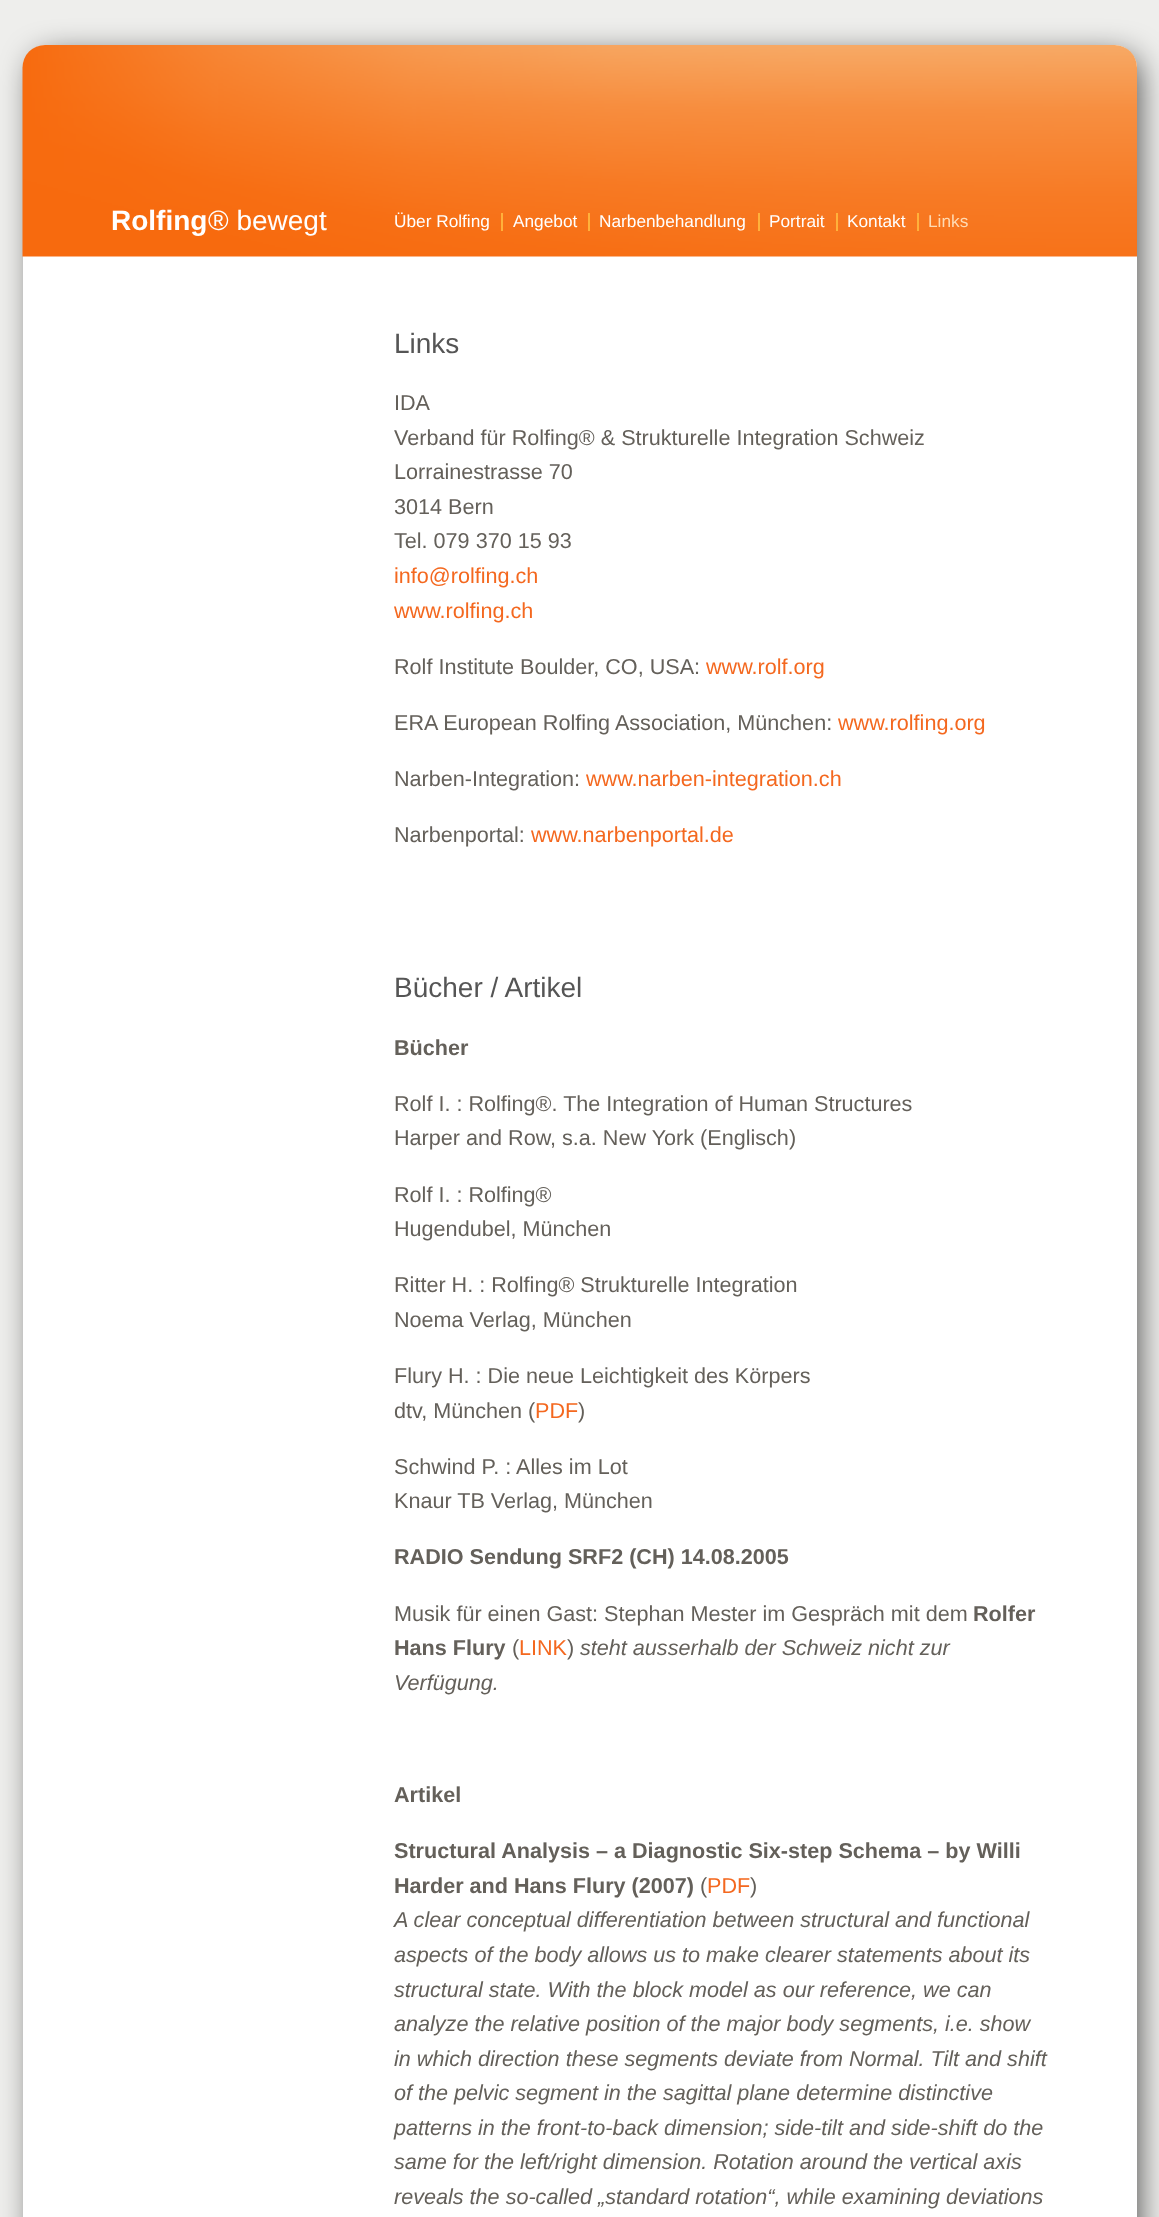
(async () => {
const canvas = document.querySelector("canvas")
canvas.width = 1159
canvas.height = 2217
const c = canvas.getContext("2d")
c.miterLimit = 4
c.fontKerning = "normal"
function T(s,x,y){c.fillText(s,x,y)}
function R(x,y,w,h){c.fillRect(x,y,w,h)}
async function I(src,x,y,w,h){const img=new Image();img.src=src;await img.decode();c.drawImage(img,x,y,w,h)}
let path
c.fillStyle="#eeeeec"
R(0,0,1159,2217)
c.fillStyle="#000000bf"
c.filter="blur(16.5px)"
c.beginPath()
c.roundRect(35,57,1102,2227,17)
c.fill()
c.filter="none"
c.fillStyle="#fff"
path = new Path2D("M46 45h1068c12.5 0 23 10.5 23 23v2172h-1114v-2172c0-12.5 10.5-23 23-23z")
c.fill(path)
await I("1.png",22,45,1115,212)
c.font="bold 28px Liberation Sans"
T("Rolfing",111,230)
c.font="28px Liberation Sans"
T("® bewegt",208,230)
c.fillStyle="#ffb13b"
R(501,213,2,18)
c.font="17.25px Liberation Sans"
c.fillStyle="#fff"
T("Über Rolfing",394,227)
c.fillStyle="#ffb13b"
R(588,213,2,18)
c.fillStyle="#fff"
T("Angebot",513,227)
c.fillStyle="#ffb13b"
R(758,213,2,18)
c.fillStyle="#fff"
T("Narbenbehandlung",599,227)
c.fillStyle="#ffb13b"
R(836,213,2,18)
c.fillStyle="#fff"
T("Portrait",769,227)
c.fillStyle="#ffb13b"
R(917,213,2,18)
c.fillStyle="#fff"
T("Kontakt",847,227)
c.fillStyle="#ffdbb4"
T("Links",928,227)
c.font="28px Liberation Sans"
c.fillStyle="#555"
T("Links",394,353)
c.font="21.6px Liberation Sans"
c.fillStyle="#64605a"
T("IDA",394,410)
T("Verband für Rolfing® & Strukturelle Integration Schweiz",394,445)
T("Lorrainestrasse 70",394,479)
T("3014 Bern",394,514)
T("Tel. 079 370 15 93",394,548)
c.fillStyle="#f4681f"
T("info@rolfing.ch",394,583)
T("www.rolfing.ch",394,618)
c.fillStyle="#64605a"
T("Rolf Institute Boulder, CO, USA:",394,674)
c.fillStyle="#f4681f"
T("www.rolf.org",706,674)
c.fillStyle="#64605a"
T("ERA European Rolfing Association, München:",394,730)
c.fillStyle="#f4681f"
T("www.rolfing.org",838,730)
c.fillStyle="#64605a"
T("Narben-Integration:",394,786)
c.fillStyle="#f4681f"
T("www.narben-integration.ch",586,786)
c.fillStyle="#64605a"
T("Narbenportal:",394,842)
c.fillStyle="#f4681f"
T("www.narbenportal.de",531,842)
c.font="28px Liberation Sans"
c.fillStyle="#555"
T("Bücher / Artikel",394,997)
c.font="bold 21.6px Liberation Sans"
c.fillStyle="#64605a"
T("Bücher",394,1055)
c.font="21.6px Liberation Sans"
T("Rolf I. : Rolfing®. The Integration of Human Structures",394,1111)
T("Harper and Row, s.a. New York (Englisch)",394,1145)
T("Rolf I. : Rolfing®",394,1202)
T("Hugendubel, München",394,1236)
T("Ritter H. : Rolfing® Strukturelle Integration",394,1292)
T("Noema Verlag, München",394,1327)
T("Flury H. : Die neue Leichtigkeit des Körpers",394,1383)
T("dtv, München (",394,1418)
c.fillStyle="#f4681f"
T("PDF",535,1418)
c.fillStyle="#64605a"
T(")",578,1418)
T("Schwind P. : Alles im Lot",394,1474)
T("Knaur TB Verlag, München",394,1508)
c.font="bold 21.6px Liberation Sans"
T("RADIO Sendung SRF2 (CH) 14.08.2005",394,1564)
c.font="21.6px Liberation Sans"
T("Musik für einen Gast: Stephan Mester im Gespräch mit dem",394,1621)
c.font="bold 21.6px Liberation Sans"
T("Rolfer",973,1621)
T("Hans Flury",394,1655)
c.font="21.6px Liberation Sans"
T("(",512,1655)
c.fillStyle="#f4681f"
T("LINK",519,1655)
c.fillStyle="#64605a"
T(")",567,1655)
c.font="italic 21.6px Liberation Sans"
T("steht ausserhalb der Schweiz nicht zur",580,1655)
T("Verfügung.",394,1690)
c.font="bold 21.6px Liberation Sans"
T("Artikel",394,1802)
T("Structural Analysis – a Diagnostic Six-step Schema – by Willi",394,1858)
T("Harder and Hans Flury (2007)",394,1893)
c.font="21.6px Liberation Sans"
T("(",700,1893)
c.fillStyle="#f4681f"
T("PDF",707,1893)
c.fillStyle="#64605a"
T(")",750,1893)
c.font="italic 21.6px Liberation Sans"
T("A clear conceptual differentiation between structural and functional",394,1927)
T("aspects of the body allows us to make clearer statements about its",394,1962)
T("structural state. With the block model as our reference, we can",394,1997)
T("analyze the relative position of the major body segments, i.e. show",394,2031)
T("in which direction these segments deviate from Normal. Tilt and shift",394,2066)
T("of the pelvic segment in the sagittal plane determine distinctive",394,2100)
T("patterns in the front-to-back dimension; side-tilt and side-shift do the",394,2135)
T("same for the left/right dimension. Rotation around the vertical axis",394,2169)
T("reveals the so-called „standard rotation“, while examining deviations",394,2204)
})()
